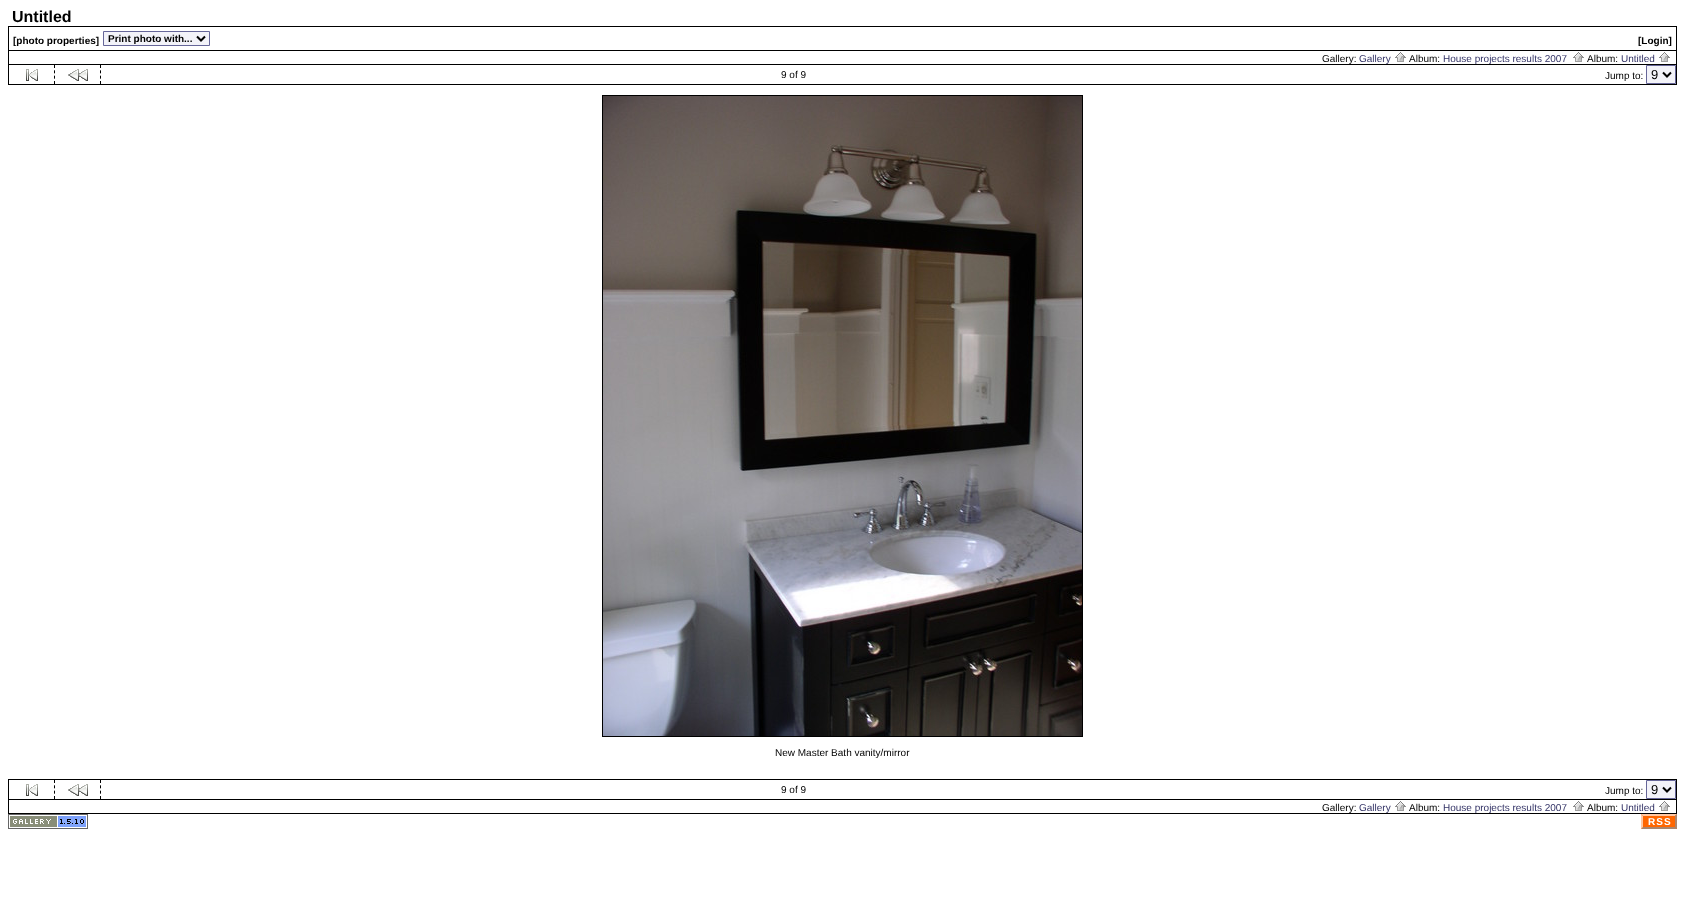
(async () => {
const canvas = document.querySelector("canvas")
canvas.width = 1685
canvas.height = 911
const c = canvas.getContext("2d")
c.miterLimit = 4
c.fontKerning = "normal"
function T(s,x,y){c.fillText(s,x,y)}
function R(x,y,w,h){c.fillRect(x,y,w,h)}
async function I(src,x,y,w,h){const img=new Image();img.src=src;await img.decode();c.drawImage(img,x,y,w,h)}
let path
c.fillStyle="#fff"
R(0,0,1685,911)
c.font="bold 16px Liberation Sans"
c.fillStyle="#000"
T("Untitled",12,22)
c.strokeStyle="#000"
c.strokeRect(8.5,26.5,1668,24)
c.font="bold 10px Liberation Sans"
T("[photo properties]",13,44)
c.fillStyle="#f3f3f9"
c.beginPath()
c.rect(103.5,31.5,106,14)
c.fill()
c.strokeStyle="#669"
c.stroke()
path = new Path2D("M197 36.5l4 4l4-4")
c.strokeStyle="#000"
c.lineWidth=2
c.stroke(path)
c.fillStyle="#000"
T("Print photo with...",108,42)
T("[Login]",1638,44)
R(1676,51,1,34)
R(8,64,1669,1)
R(8,51,1,14)
c.font="10px Liberation Sans"
T("Gallery:",1322,62)
c.fillStyle="#336"
T("Gallery",1359,62)
await I("1.png",1395,52,11,10)
c.fillStyle="#000"
T("Album:",1409,62)
c.fillStyle="#336"
T("House projects results 2007",1443,62)
await I("1.png",1573,52,11,10)
c.fillStyle="#000"
T("Album:",1587,62)
c.fillStyle="#336"
T("Untitled",1621,62)
await I("1.png",1659,52,11,10)
c.fillStyle="#000"
R(8,84,1669,1)
R(8,65,1,20)
path = new Path2D("M54.5 65v19m46-19v19")
c.lineWidth=1
c.setLineDash([3,2.33])
c.stroke(path)
await I("2.png",26,69,12,12)
await I("3.png",68,69,20,12)
T("9 of 9",781,78)
T("Jump to:",1605,79)
c.fillStyle="#f3f3f9"
c.beginPath()
c.rect(1646.5,65.5,29,18)
c.fill()
c.strokeStyle="#669"
c.setLineDash([])
c.stroke()
path = new Path2D("M1663 72.5l4 4l4-4")
c.strokeStyle="#000"
c.lineWidth=2
c.stroke(path)
c.font="13px Liberation Sans"
c.fillStyle="#000"
T("9",1651,79)
c.lineWidth=1
c.strokeRect(602.5,95.5,480,641)
await I("4.png",603,96,479,640)
c.font="10px Liberation Sans"
T("New Master Bath vanity/mirror",775,756)
c.strokeRect(8.5,779.5,1668,20)
path = new Path2D("M54.5 780v19m46-19v19")
c.setLineDash([3,2.33])
c.stroke(path)
await I("2.png",26,784,12,12)
await I("3.png",68,784,20,12)
T("9 of 9",781,793)
T("Jump to:",1605,794)
c.fillStyle="#f3f3f9"
c.beginPath()
c.rect(1646.5,780.5,29,18)
c.fill()
c.strokeStyle="#669"
c.setLineDash([])
c.stroke()
path = new Path2D("M1663 787.5l4 4l4-4")
c.strokeStyle="#000"
c.lineWidth=2
c.stroke(path)
c.font="13px Liberation Sans"
c.fillStyle="#000"
T("9",1651,794)
R(1676,800,1,14)
R(8,813,1669,1)
R(8,800,1,14)
c.font="10px Liberation Sans"
T("Gallery:",1322,811)
c.fillStyle="#336"
T("Gallery",1359,811)
await I("1.png",1395,801,11,10)
c.fillStyle="#000"
T("Album:",1409,811)
c.fillStyle="#336"
T("House projects results 2007",1443,811)
await I("1.png",1573,801,11,10)
c.fillStyle="#000"
T("Album:",1587,811)
c.fillStyle="#336"
T("Untitled",1621,811)
await I("1.png",1659,801,11,10)
await I("5.png",8,814,80,15)
c.fillStyle="#f60"
R(1641,814,36,15)
c.letterSpacing="1px"
c.font="bold 10px Liberation Sans"
c.fillStyle="#fff"
T("RSS",1648,825)
c.fillStyle="#ffc8a4"
path = new Path2D("M1641 814h36l-2 2h-32z")
c.fill(path)
c.fillStyle="#aa856d"
path = new Path2D("M1677 814v15l-2-2v-11z")
c.fill(path)
path = new Path2D("M1677 829h-36l2-2h32z")
c.fill(path)
c.fillStyle="#ffc8a4"
path = new Path2D("M1641 829v-15l2 2v11z")
c.fill(path)
})()
